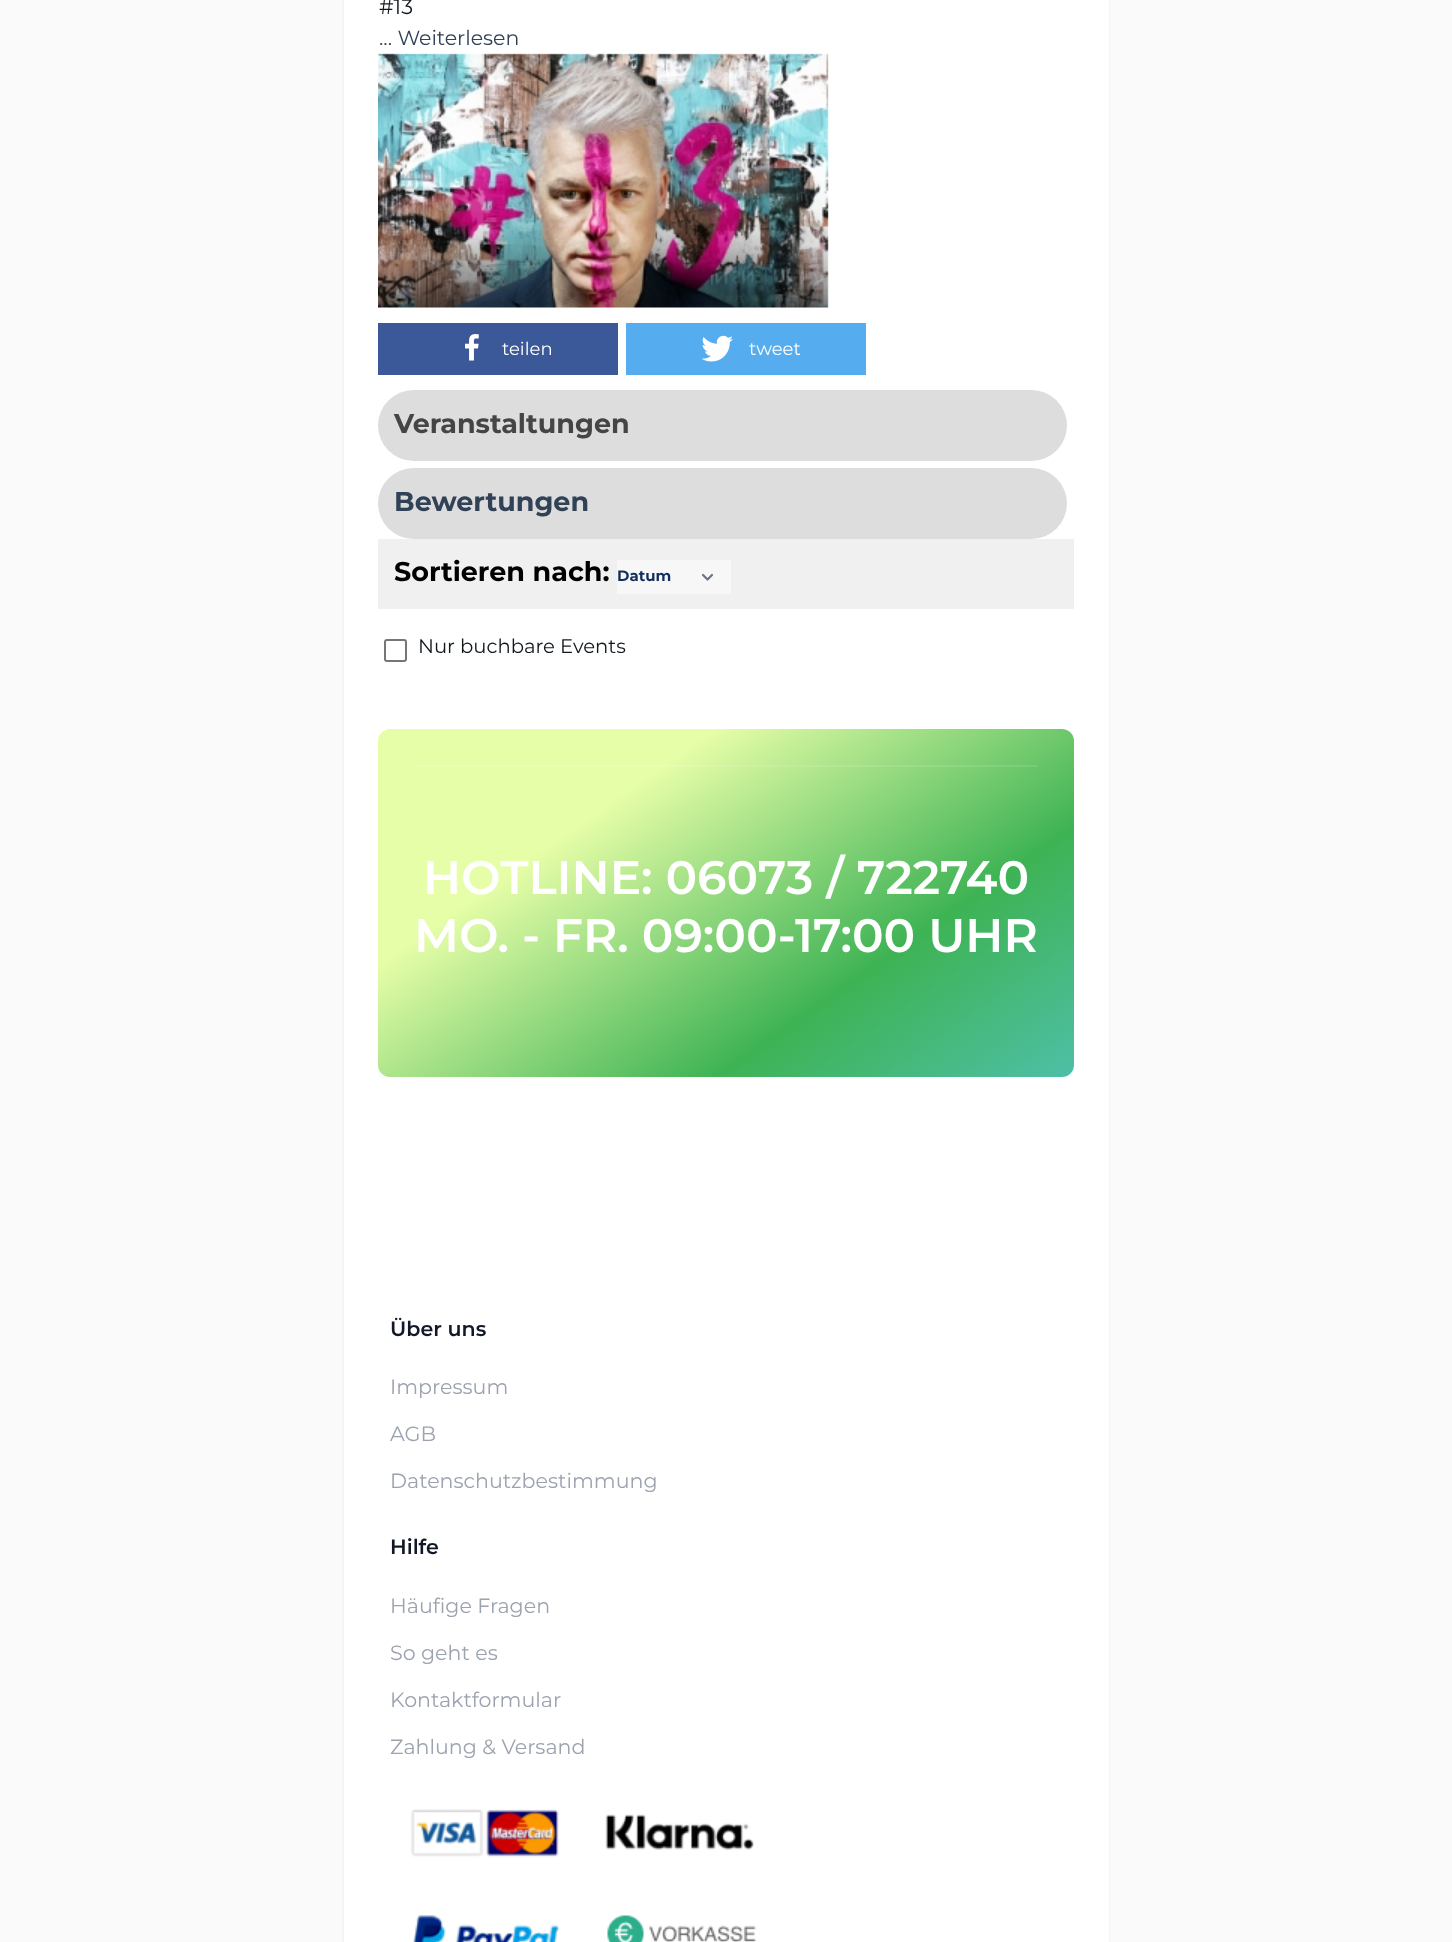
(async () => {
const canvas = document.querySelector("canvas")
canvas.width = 1452
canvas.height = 1942
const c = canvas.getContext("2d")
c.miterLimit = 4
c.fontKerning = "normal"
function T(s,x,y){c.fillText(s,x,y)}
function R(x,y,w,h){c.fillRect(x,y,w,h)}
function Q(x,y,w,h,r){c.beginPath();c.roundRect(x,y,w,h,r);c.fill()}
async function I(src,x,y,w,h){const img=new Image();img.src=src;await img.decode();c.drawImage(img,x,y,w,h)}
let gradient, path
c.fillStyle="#fafafa"
R(0,0,1452,1942)
c.strokeStyle="#f4f4f5"
c.lineWidth=2
c.strokeRect(343,-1,766,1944)
c.fillStyle="#fff"
R(344,0,765,1942)
c.font="21px Montserrat"
c.fillStyle="#11181c"
T("#13",379,14)
c.font="20.5px Montserrat"
c.fillStyle="#314257"
T("... Weiterlesen",379,45)
await I("1.png",378,53,451,255)
c.fillStyle="#3b5998"
R(378,323,240,52)
await I("2.png",465,334,14,27)
c.font="18px Montserrat"
c.fillStyle="#fff"
T("teilen",502,355)
c.fillStyle="#55acee"
R(626,323,240,52)
await I("3.png",701,335,32,27)
c.fillStyle="#fff"
T("tweet",749,355)
c.fillStyle="#ddd"
Q(378,390,689,71,35.5)
c.font="bold 27px Montserrat"
c.fillStyle="#454545"
T("Veranstaltungen",394,433)
c.fillStyle="#ddd"
Q(378,468,689,71,35.5)
c.fillStyle="#314257"
T("Bewertungen",394,511)
c.fillStyle="#f0f0f0"
R(378,539,696,70)
c.fillStyle="#000"
T("Sortieren nach:",394,581)
c.fillStyle="#f7f7f7"
R(617,560,114,34)
path = new Path2D("M703 575l4.5 4.5l4.5-4.5")
c.strokeStyle="#6b7280"
c.lineWidth=2.2
c.lineCap="round"
c.lineJoin="round"
c.stroke(path)
c.font="bold 15px Montserrat"
c.fillStyle="#122f5e"
T("Datum",617,581)
c.beginPath()
c.roundRect(385,640,21,21,2)
c.strokeStyle="#767676"
c.lineWidth=2
c.lineJoin="miter"
c.stroke()
c.font="19.6px Montserrat"
c.fillStyle="#11181c"
T("Nur buchbare Events",418,653)
gradient = c.createLinearGradient(530,623,922,1183)
gradient.addColorStop(.28,"#e7fea8")
gradient.addColorStop(.7,"#3eb354")
gradient.addColorStop(1,"#4ebfa6")
c.fillStyle = gradient
Q(378,729,696,348,12)
gradient = c.createLinearGradient(530,623,922,1183)
gradient.addColorStop(.28,"#e9feb1")
gradient.addColorStop(.7,"#51bb65")
gradient.addColorStop(1,"#60c5af")
c.fillStyle = gradient
R(414,765,624,2)
c.font="600 47px Montserrat"
c.fillStyle="#fff"
T("HOTLINE: 06073 / 722740",423,894)
T("MO. - FR. 09:00-17:00 UHR",414,952)
c.font="600 20.6px Montserrat"
c.fillStyle="#111827"
T("Über uns",390,1336)
c.font="20.6px Montserrat"
c.fillStyle="#9ca3af"
T("Impressum",390,1394)
T("AGB",390,1441)
T("Datenschutzbestimmung",390,1488)
c.font="600 20.6px Montserrat"
c.fillStyle="#111827"
T("Hilfe",390,1554)
c.font="20.6px Montserrat"
c.fillStyle="#9ca3af"
T("Häufige Fragen",390,1613)
T("So geht es",390,1660)
T("Kontaktformular",390,1707)
T("Zahlung & Versand",390,1754)
await I("4.png",405,1809,159,54)
await I("5.png",600,1814,159,49)
await I("6.png",413,1915,146,27)
await I("7.png",607,1915,150,27)
})()
